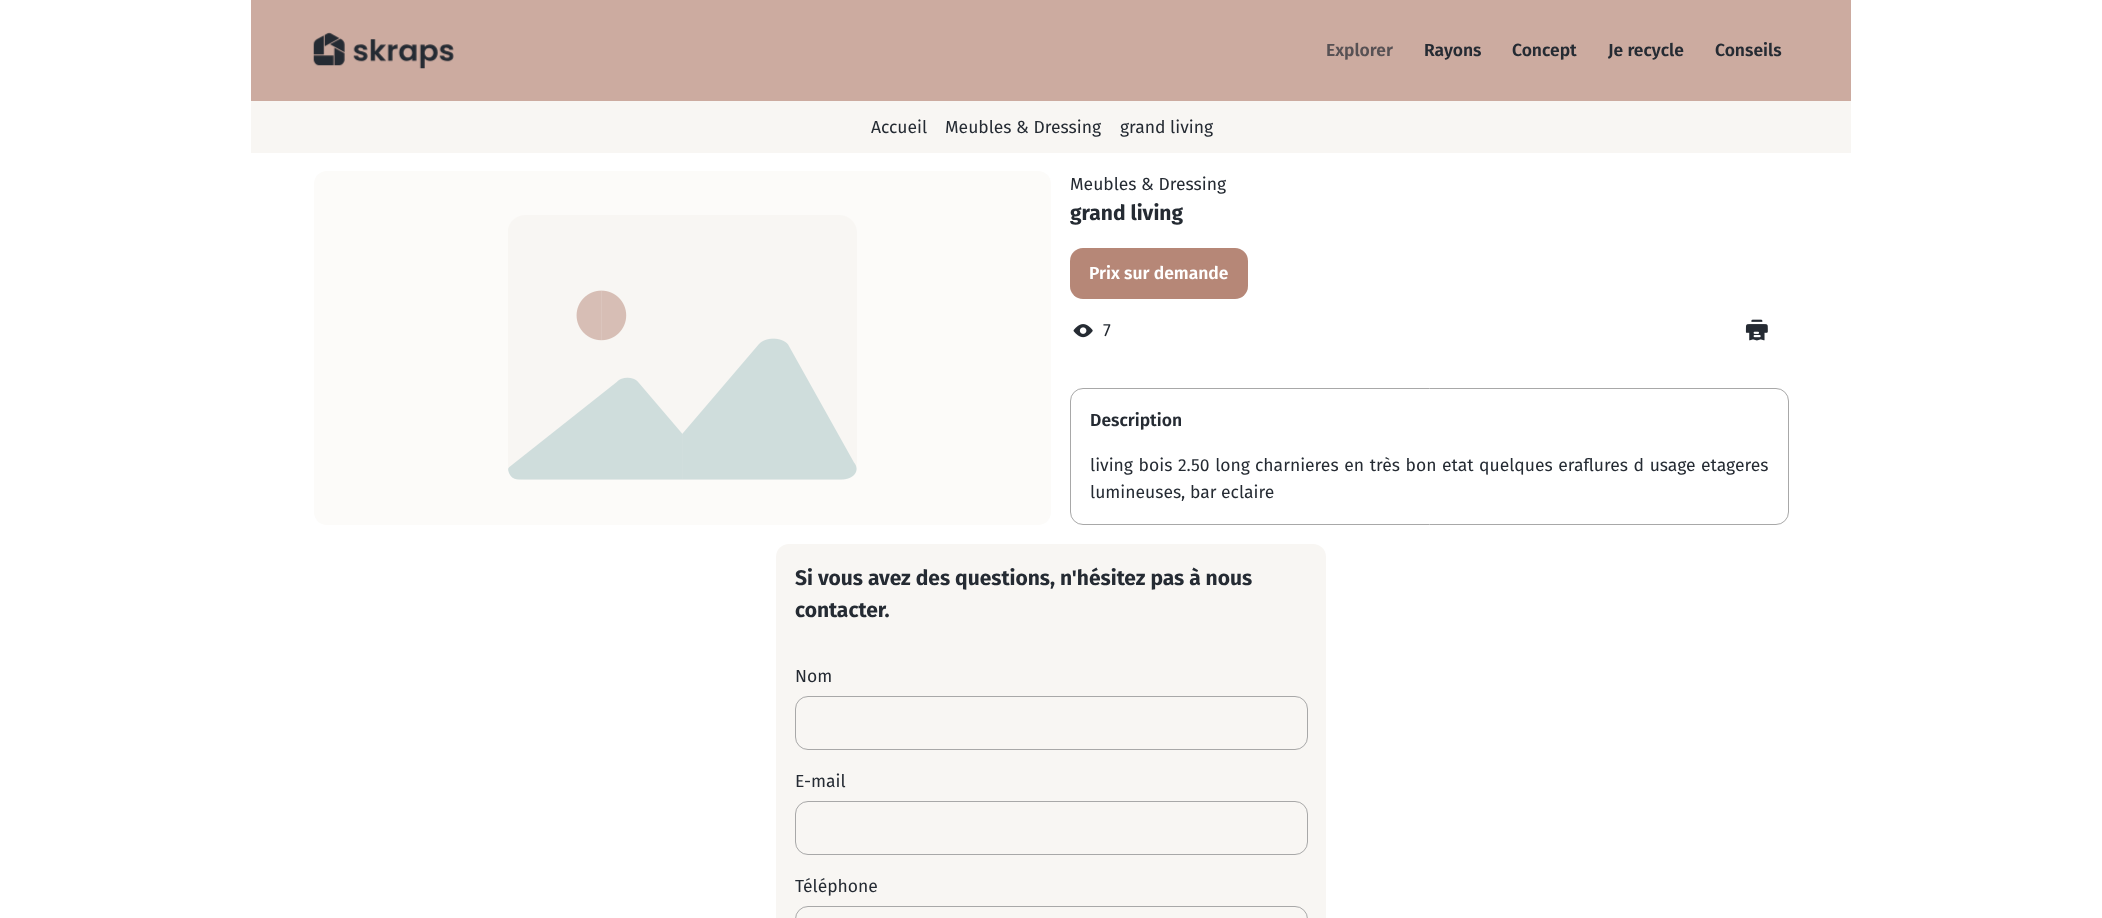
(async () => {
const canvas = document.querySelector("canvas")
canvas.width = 2102
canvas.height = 918
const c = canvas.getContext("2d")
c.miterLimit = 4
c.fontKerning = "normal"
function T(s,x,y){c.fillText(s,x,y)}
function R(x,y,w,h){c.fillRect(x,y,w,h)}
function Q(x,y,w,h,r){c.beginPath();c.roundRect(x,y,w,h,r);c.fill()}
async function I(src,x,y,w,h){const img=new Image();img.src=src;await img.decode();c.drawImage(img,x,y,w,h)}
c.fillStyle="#fff"
R(0,0,2102,918)
c.fillStyle="#ccaba0"
R(251,0,1600,101)
await I("1.png",313,32,141,37)
c.font="600 17.5px Fira Sans"
c.fillStyle="#575154"
T("Explorer",1326,56)
c.fillStyle="#252b33"
T("Rayons",1424,56)
T("Concept",1512,56)
T("Je recycle",1608,56)
T("Conseils",1715,56)
c.fillStyle="#f8f6f3"
R(251,101,1600,52)
c.font="17.5px Fira Sans"
c.fillStyle="#252b33"
T("Accueil",871,133)
T("Meubles & Dressing",945,133)
T("grand living",1120,133)
c.fillStyle="#fcfbf9"
Q(314,171,737,354,13)
await I("2.png",508,215,349,265)
c.fillStyle="#252b33"
T("Meubles & Dressing",1070,190)
c.font="bold 21px Fira Sans"
T("grand living",1070,220)
c.fillStyle="#b68777"
Q(1070,248,178,51,13)
c.font="600 17.5px Fira Sans"
c.fillStyle="#fff"
T("Prix sur demande",1089,279)
await I("3.png",1073,324,20,14)
c.font="17.5px Fira Sans"
c.fillStyle="#252b33"
T("7",1103,336)
await I("4.png",1745,319,23,22)
c.beginPath()
c.roundRect(1070.5,388.5,718,136,12.5)
c.strokeStyle="#a8a8a8"
c.stroke()
c.font="600 17.5px Fira Sans"
T("Description",1090,426)
c.wordSpacing="1px"
c.font="17.5px Fira Sans"
T("living bois 2.50 long",1090,471)
T("charnieres en très bon etat",1255,471)
T("quelques eraflures d usage",1479,471)
c.wordSpacing="0px"
T("etageres",1701,471)
T("lumineuses, bar eclaire",1090,498)
c.fillStyle="#f8f6f3"
Q(776,544,550,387,13)
c.font="bold 21px Fira Sans"
c.fillStyle="#252b33"
T("Si vous avez des questions, n'hésitez pas à nous",795,585)
T("contacter.",795,617)
c.font="17.5px Fira Sans"
T("Nom",795,682)
c.beginPath()
c.roundRect(795.5,696.5,512,53,12.5)
c.stroke()
T("E-mail",795,787)
c.beginPath()
c.roundRect(795.5,801.5,512,53,12.5)
c.stroke()
T("Téléphone",795,892)
c.beginPath()
c.roundRect(795.5,906.5,512,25,12.5)
c.stroke()
})()
